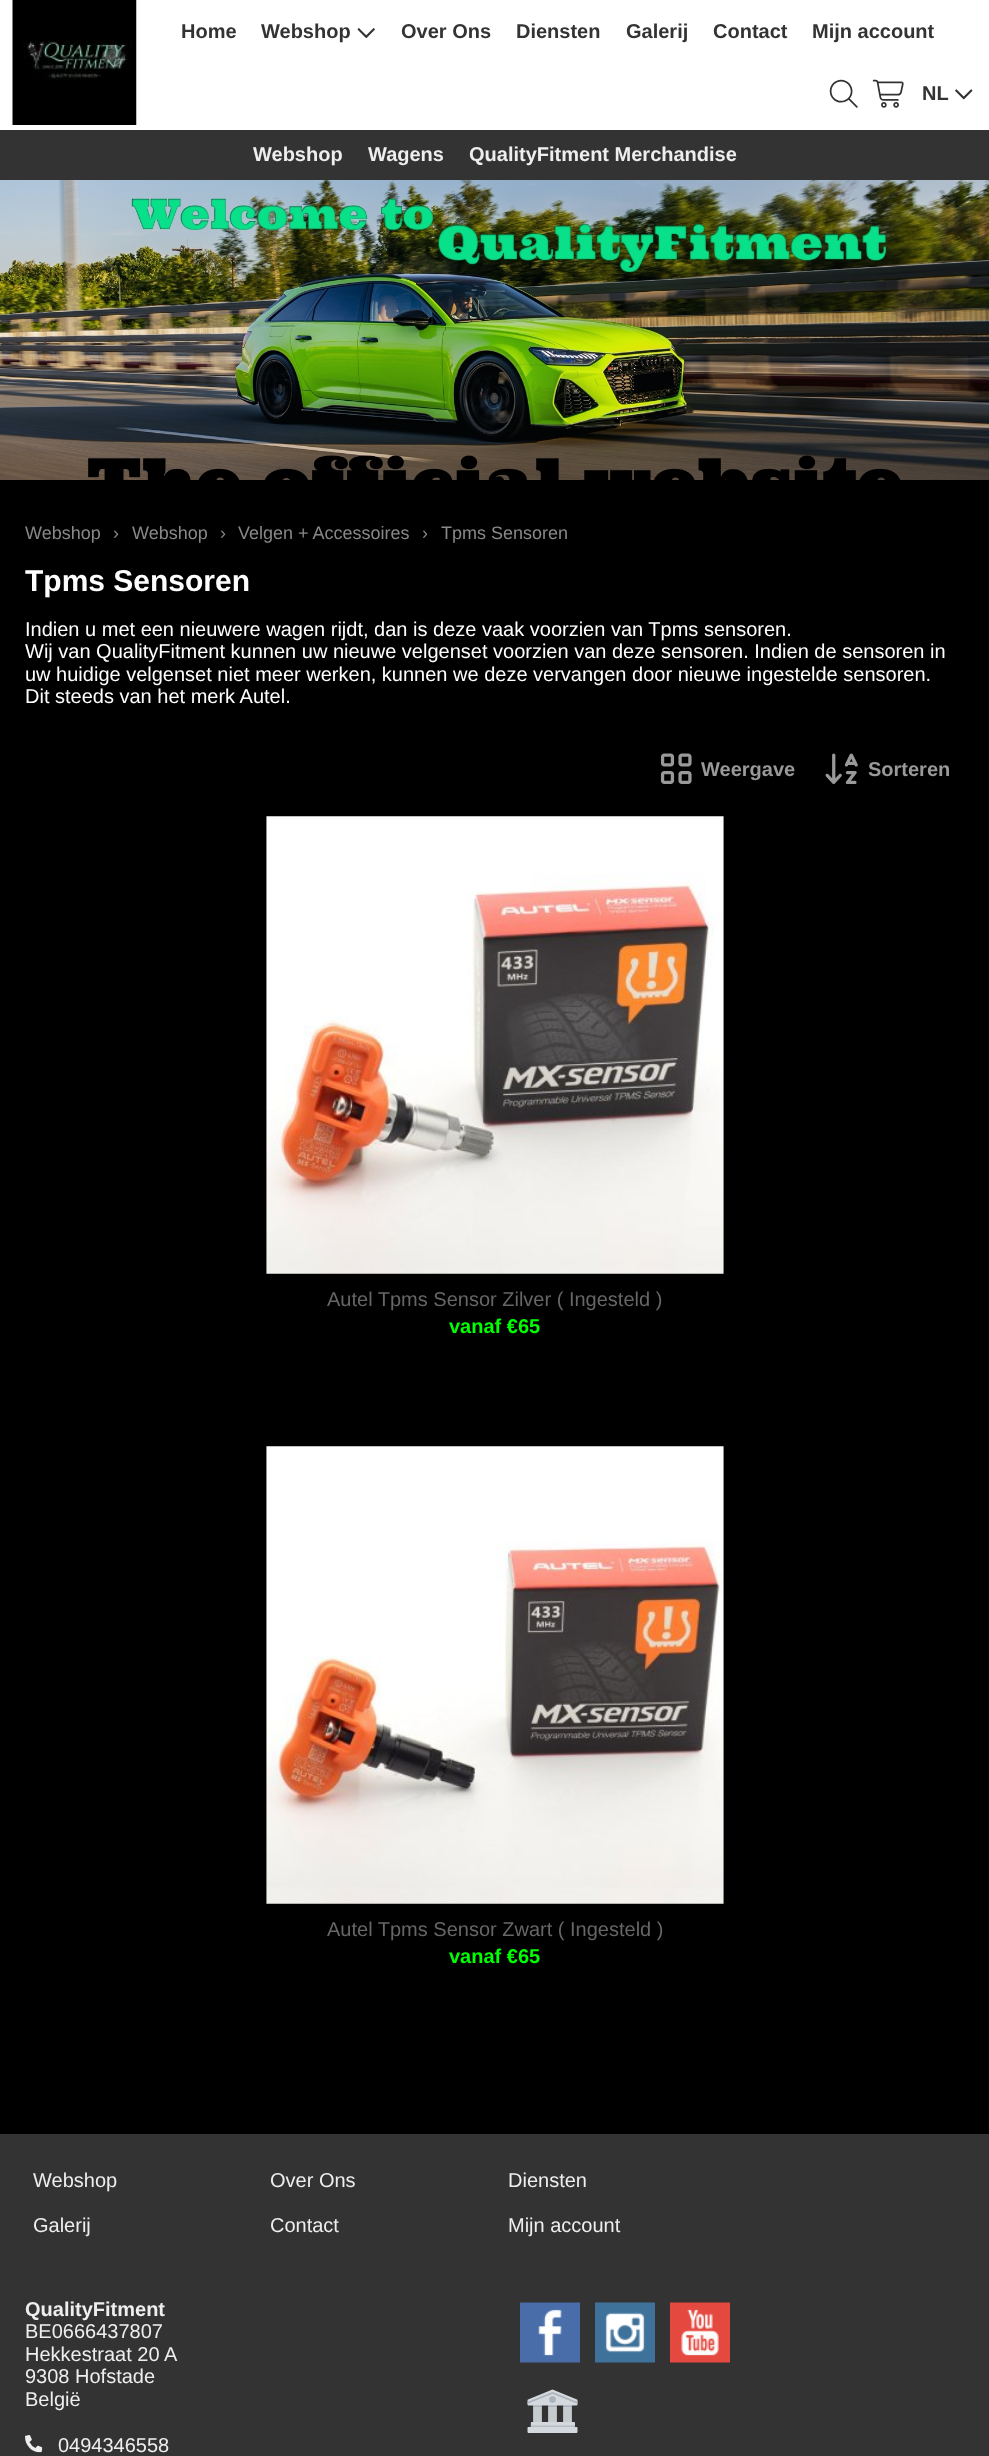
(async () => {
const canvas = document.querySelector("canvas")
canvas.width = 989
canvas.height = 2456
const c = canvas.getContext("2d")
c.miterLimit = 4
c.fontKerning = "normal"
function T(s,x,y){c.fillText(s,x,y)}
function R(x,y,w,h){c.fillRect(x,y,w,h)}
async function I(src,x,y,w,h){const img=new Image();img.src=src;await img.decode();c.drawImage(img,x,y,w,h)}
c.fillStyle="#000"
R(0,0,989,2456)
c.fillStyle="#fff"
R(0,0,989,130)
await I("1.png",12,0,125,125)
c.font="bold 20px Liberation Sans"
c.fillStyle="#333"
T("Home",181,38)
T("Webshop",261,38)
await I("2.png",357,28,18,10)
T("Over Ons",401,38)
T("Diensten",516,38)
T("Galerij",626,38)
T("Contact",713,38)
T("Mijn account",812,38)
await I("3.png",829,79,29,29)
await I("4.png",872,79,32,29)
T("NL",922,100)
await I("5.png",955,89,18,11)
R(0,130,989,50)
c.fillStyle="#eee"
T("Webshop",253,161)
T("Wagens",368,161)
T("QualityFitment Merchandise",469,161)
await I("6.png",0,180,989,300)
c.font="18px Liberation Sans"
c.fillStyle="#888"
T("Webshop",25,539)
T("›",113,539)
T("Webshop",132,539)
T("›",220,539)
T("Velgen + Accessoires",238,539)
T("›",422,539)
T("Tpms Sensoren",441,539)
c.font="bold 30px Liberation Sans"
c.fillStyle="#fff"
T("Tpms Sensoren",25,591)
c.font="20px Liberation Sans"
T("Indien u met een nieuwere wagen rijdt, dan is deze vaak voorzien van Tpms sensoren.",25,636)
T("Wij van QualityFitment kunnen uw nieuwe velgenset voorzien van deze sensoren. Indien de sensoren in",25,658)
T("uw huidige velgenset niet meer werken, kunnen we deze vervangen door nieuwe ingestelde sensoren.",25,681)
T("Dit steeds van het merk Autel.",25,703)
await I("7.png",660,753,32,31)
c.font="bold 20px Liberation Sans"
c.fillStyle="#999"
T("Weergave",701,776)
await I("8.png",825,753,33,31)
T("Sorteren",868,776)
await I("9.png",266,816,458,458)
c.font="20px Liberation Sans"
c.fillStyle="#666"
T("Autel Tpms Sensor Zilver ( Ingesteld )",327,1306)
c.font="bold 20px Liberation Sans"
c.fillStyle="#0f0"
T("vanaf €65",449,1333)
await I("10.png",266,1446,458,458)
c.font="20px Liberation Sans"
c.fillStyle="#666"
T("Autel Tpms Sensor Zwart ( Ingesteld )",327,1936)
c.font="bold 20px Liberation Sans"
c.fillStyle="#0f0"
T("vanaf €65",449,1963)
c.fillStyle="#333"
R(0,2134,989,322)
c.font="20px Liberation Sans"
c.fillStyle="#eee"
T("Webshop",33,2187)
T("Over Ons",270,2187)
T("Diensten",508,2187)
T("Galerij",33,2232)
T("Contact",270,2232)
T("Mijn account",508,2232)
c.font="bold 20px Liberation Sans"
T("QualityFitment",25,2316)
c.font="20px Liberation Sans"
T("BE0666437807",25,2338)
T("Hekkestraat 20 A",25,2361)
T("9308 Hofstade",25,2383)
T("België",25,2406)
await I("11.png",25,2435,18,18)
T("0494346558",58,2452)
await I("12.png",520,2302,60,61)
await I("13.png",595,2302,60,61)
await I("14.png",670,2302,60,61)
await I("15.png",527,2389,51,44)
})()
